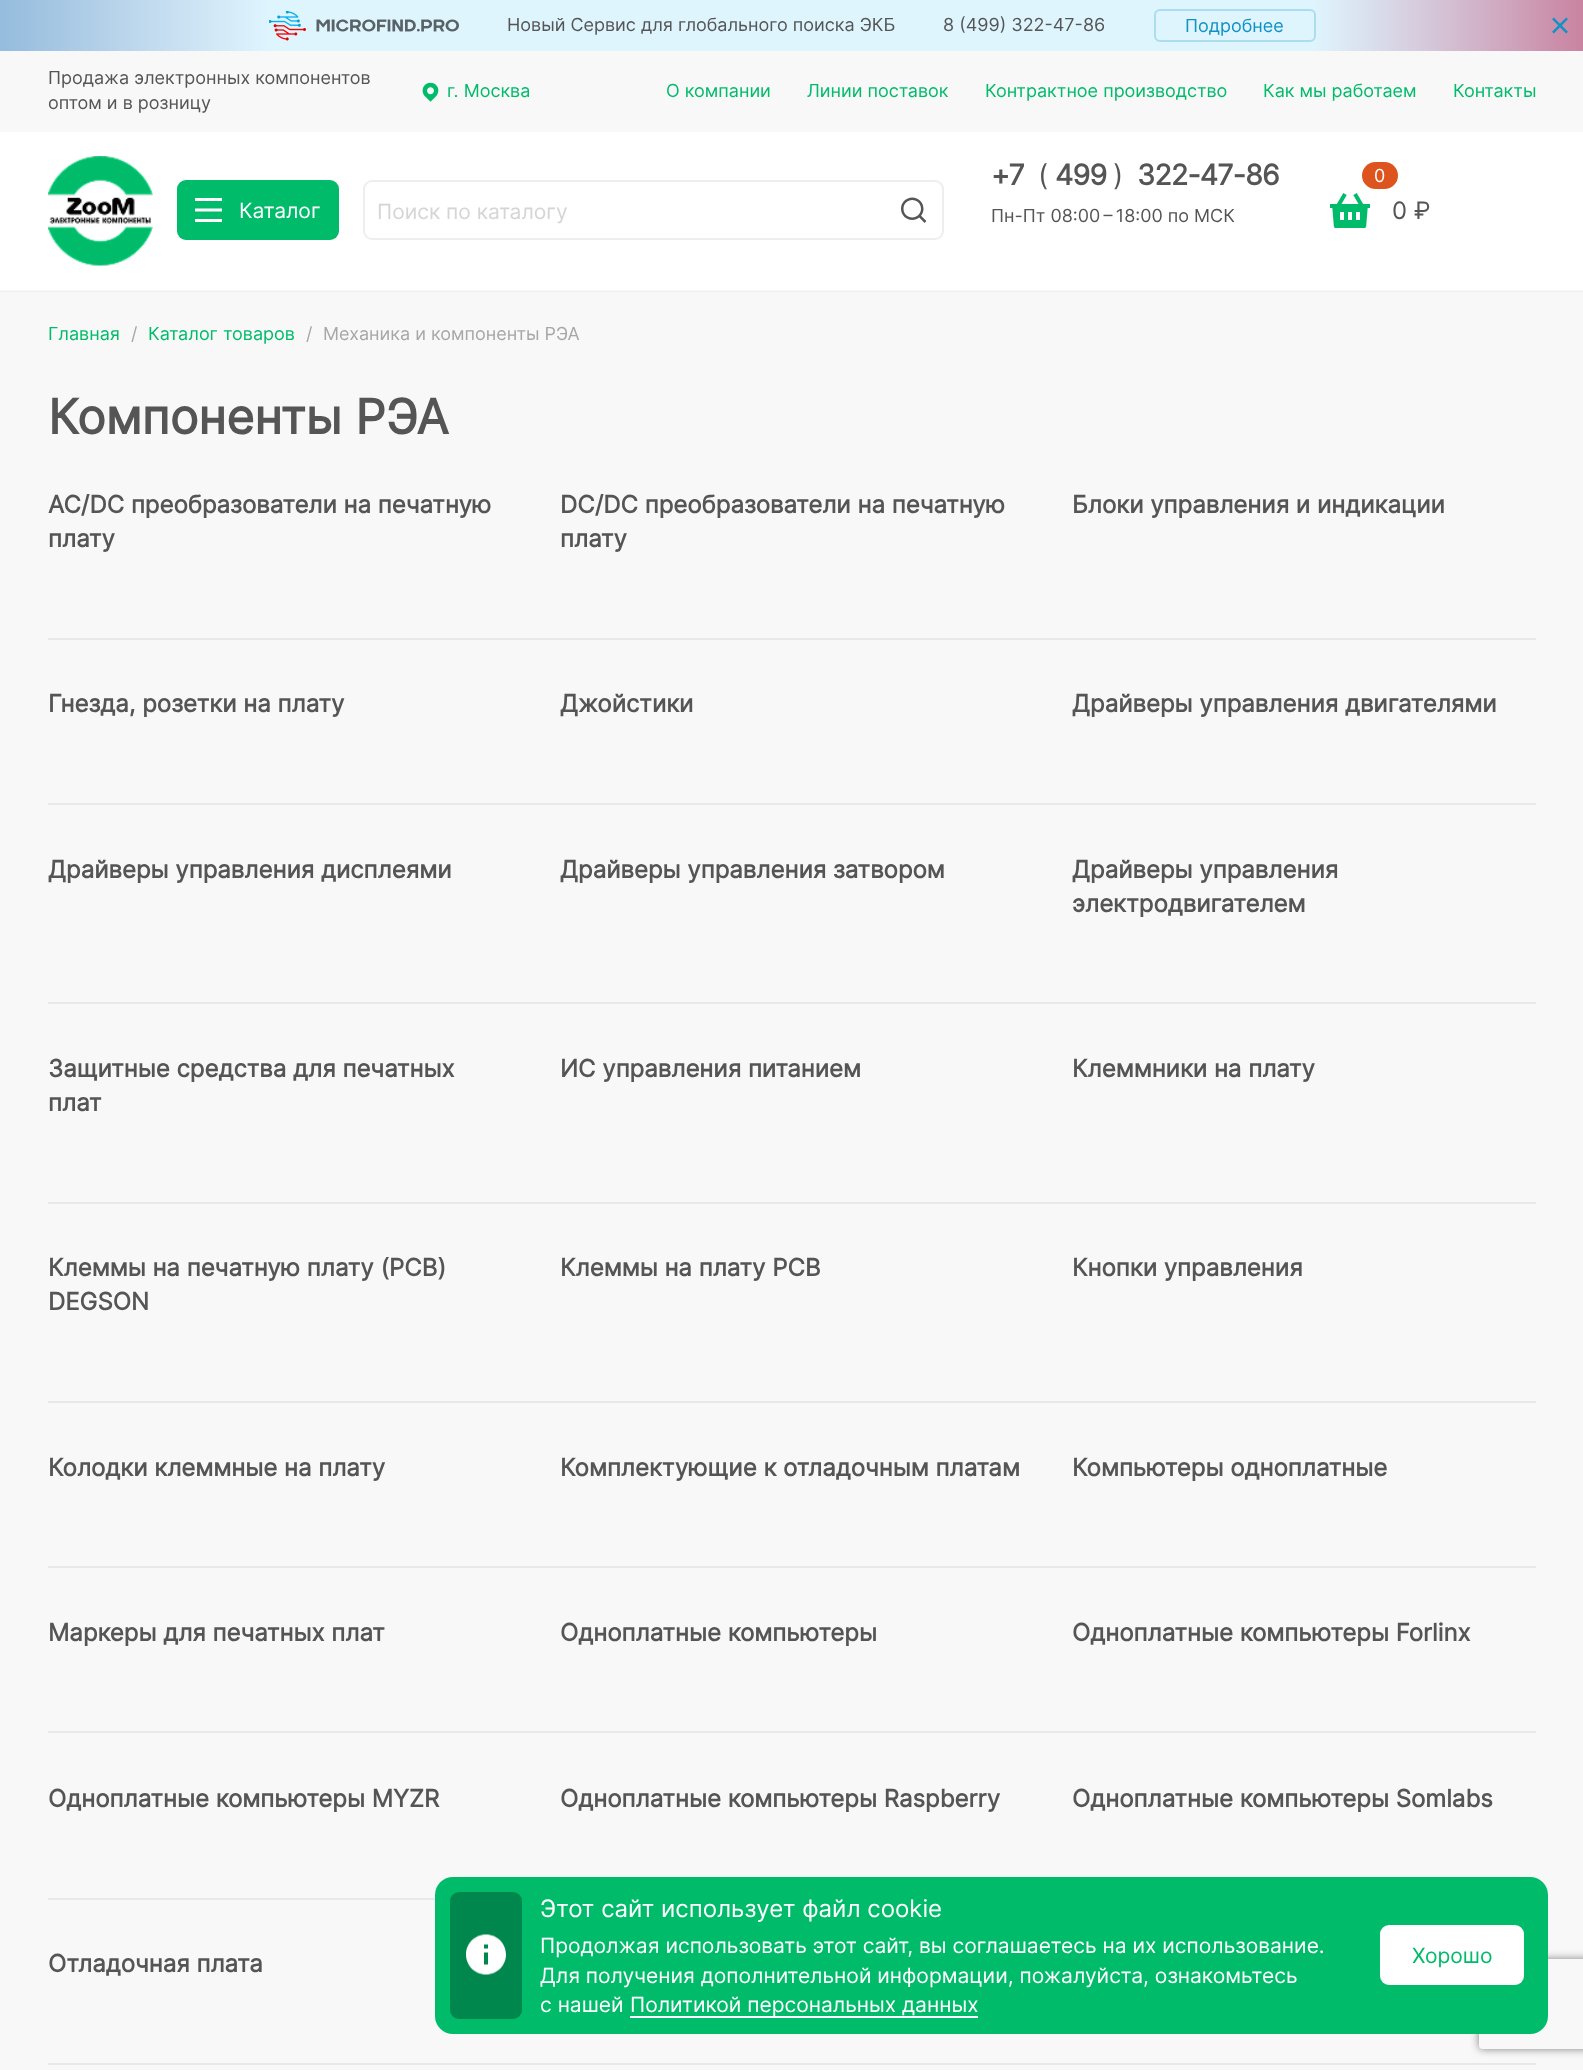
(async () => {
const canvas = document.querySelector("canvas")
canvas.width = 1583
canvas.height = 2070
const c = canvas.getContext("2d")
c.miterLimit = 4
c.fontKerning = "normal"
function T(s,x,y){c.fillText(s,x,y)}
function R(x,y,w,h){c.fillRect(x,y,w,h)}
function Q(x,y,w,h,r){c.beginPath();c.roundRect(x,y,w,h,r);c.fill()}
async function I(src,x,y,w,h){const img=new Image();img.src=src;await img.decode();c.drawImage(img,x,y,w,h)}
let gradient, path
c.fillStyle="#f8f8f8"
R(0,0,1583,2070)
c.fillStyle="#f0f0f0"
R(0,291,1583,1)
gradient = c.createLinearGradient(-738,26,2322,26)
gradient.addColorStop(0,"#afd9e5")
gradient.addColorStop(.25,"#5187be")
gradient.addColorStop(.5,"#ad72b0")
gradient.addColorStop(.75,"#b41c4c")
gradient.addColorStop(1,"#c52d6d")
c.fillStyle = gradient
R(0,0,1583,51)
gradient = c.createLinearGradient(-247,26,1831,26)
gradient.addColorStop(0,"#dff5fe00")
gradient.addColorStop(.25,"#dff5fe")
gradient.addColorStop(.75,"#dff5fe")
gradient.addColorStop(1,"#dff5fe00")
c.fillStyle = gradient
R(0,0,1583,51)
await I("1.png",269,11,190,30)
c.font="18px Inter"
c.fillStyle="#555"
T("Новый Сервис для глобального поиска ЭКБ",507,31)
T("8 (499) 322-47-86",943,31)
c.beginPath()
c.roundRect(1155,10,160,31,5)
c.strokeStyle="#acdcf0"
c.lineWidth=2
c.stroke()
c.fillStyle="#1291c5"
T("Подробнее",1185,32)
await I("2.png",1552,17,16,17)
c.fillStyle="#555"
T("Продажа электронных компонентов",48,84)
T("оптом и в розницу",48,109)
await I("3.png",422,82,17,20)
c.fillStyle="#00bb6a"
T("г. Москва",447,97)
T("О компании",666,97)
T("Линии поставок",807,97)
T("Контрактное производство",985,97)
T("Как мы работаем",1263,97)
T("Контакты",1453,97)
c.fillStyle="#fff"
R(0,132,1583,158)
await I("4.png",48,156,105,110)
c.fillStyle="#00bb6a"
Q(177,180,162,60,9)
await I("5.png",195,198,27,24)
c.font="21px Inter"
c.fillStyle="#fff"
T("Каталог",239,218)
c.beginPath()
c.roundRect(364,181,579,58,8)
c.strokeStyle="#eee"
c.stroke()
c.fillStyle="#d5d5d5"
T("Поиск по каталогу",377,219)
await I("6.png",901,197,26,26)
c.letterSpacing="-0.75px"
c.font="bold 28.5px Inter"
c.fillStyle="#555"
T("+7",991,185)
c.font="28.5px Inter"
T("(",1038,185)
c.font="bold 28.5px Inter"
T("499",1055,185)
c.font="28.5px Inter"
T(")",1113,185)
c.font="bold 28.5px Inter"
T("322-47-86",1137,185)
c.letterSpacing="0px"
c.font="18px Inter"
T("Пн-Пт 08:00 – 18:00 по МСК",991,222)
c.fillStyle="#de541e"
Q(1362,162,36,27,13.5)
c.fillStyle="#fff"
T("0",1374,182)
await I("7.png",1330,193,40,35)
c.font="24px Inter"
c.fillStyle="#555"
T("0 ₽",1392,219)
c.font="18px Inter"
c.fillStyle="#00bb6a"
T("Главная",48,340)
c.fillStyle="#a7a7a7"
T("/",131,340)
c.fillStyle="#00bb6a"
T("Каталог товаров",148,340)
c.fillStyle="#a7a7a7"
T("/",306,340)
T("Механика и компоненты РЭА",323,340)
c.font="bold 48px Inter"
c.fillStyle="#555"
T("Компоненты РЭА",48,434)
c.font="bold 24px Inter"
T("AC/DC преобразователи на печатную",48,513)
T("плату",48,547)
c.fillStyle="#e8e8e8"
R(48,638,1488,2)
c.fillStyle="#555"
T("DC/DC преобразователи на печатную",560,513)
T("плату",560,547)
T("Блоки управления и индикации",1072,513)
T("Гнезда, розетки на плату",48,712)
c.fillStyle="#e8e8e8"
R(48,803,1488,2)
c.fillStyle="#555"
T("Джойстики",560,712)
T("Драйверы управления двигателями",1072,712)
T("Драйверы управления дисплеями",48,878)
c.fillStyle="#e8e8e8"
R(48,1002,1488,2)
c.fillStyle="#555"
T("Драйверы управления затвором",560,878)
T("Драйверы управления",1072,878)
T("электродвигателем",1072,912)
T("Защитные средства для печатных",48,1077)
T("плат",48,1111)
c.fillStyle="#e8e8e8"
R(48,1202,1488,2)
c.fillStyle="#555"
T("ИС управления питанием",560,1077)
T("Клеммники на плату",1072,1077)
T("Клеммы на печатную плату (PCB)",48,1276)
T("DEGSON",48,1310)
c.fillStyle="#e8e8e8"
R(48,1401,1488,2)
c.fillStyle="#555"
T("Клеммы на плату PCB",560,1276)
T("Кнопки управления",1072,1276)
T("Колодки клеммные на плату",48,1476)
c.fillStyle="#e8e8e8"
R(48,1566,1488,2)
c.fillStyle="#555"
T("Комплектующие к отладочным платам",560,1476)
T("Компьютеры одноплатные",1072,1476)
T("Маркеры для печатных плат",48,1641)
c.fillStyle="#e8e8e8"
R(48,1731,1488,2)
c.fillStyle="#555"
T("Одноплатные компьютеры",560,1641)
T("Одноплатные компьютеры Forlinx",1072,1641)
T("Одноплатные компьютеры MYZR",48,1807)
c.fillStyle="#e8e8e8"
R(48,1898,387,2)
c.fillStyle="#555"
T("Одноплатные компьютеры Raspberry",560,1807)
T("Одноплатные компьютеры Somlabs",1072,1807)
T("Отладочная плата",48,1972)
c.fillStyle="#e8e8e8"
R(48,2063,1488,2)
c.save()
path = new Path2D("M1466 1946h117v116h-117zm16 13h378c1.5 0 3 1.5 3 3v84c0 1.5-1.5 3-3 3h-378c-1.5 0-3-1.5-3-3v-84c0-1.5 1.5-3 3-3z")
c.clip(path,"evenodd")
c.fillStyle="#808080"
c.filter="blur(4px)"
c.beginPath()
c.roundRect(1479,1959,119,90,3)
c.fill()
c.filter="none"
c.restore()
c.fillStyle="#00bb6a"
Q(435,1877,1113,157,18)
c.fillStyle="#00874d"
Q(450,1892,72,127,9)
await I("8.png",466,1934,40,41)
c.font="24px Inter"
c.fillStyle="#fff"
T("Этот сайт использует файл cookie",540,1917)
c.font="21px Inter"
T("Продолжая использовать этот сайт, вы соглашаетесь на их использование.",540,1953)
T("Для получения дополнительной информации, пожалуйста, ознакомьтесь",540,1983)
T("с нашей",540,2012)
R(630,2016,348,2)
T("Политикой персональных данных",630,2012)
Q(1380,1925,144,60,9)
c.fillStyle="#00bb6a"
T("Хорошо",1412,1963)
})()
